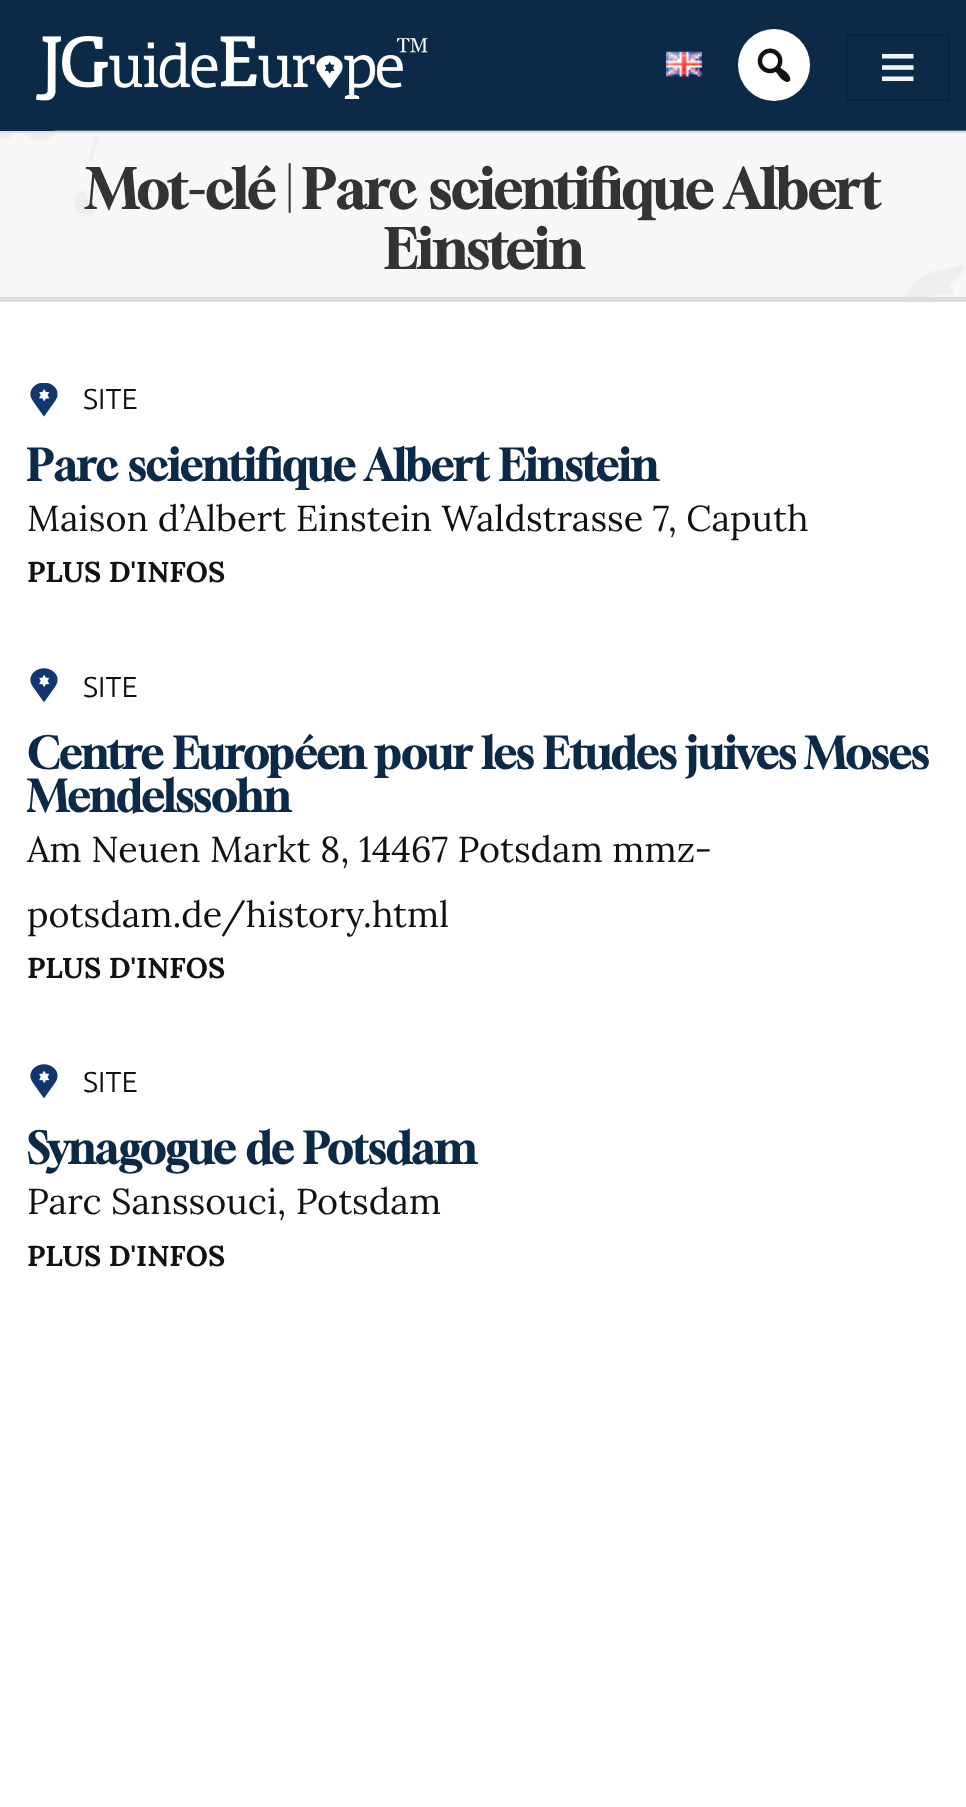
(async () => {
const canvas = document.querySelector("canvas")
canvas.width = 966
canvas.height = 1807
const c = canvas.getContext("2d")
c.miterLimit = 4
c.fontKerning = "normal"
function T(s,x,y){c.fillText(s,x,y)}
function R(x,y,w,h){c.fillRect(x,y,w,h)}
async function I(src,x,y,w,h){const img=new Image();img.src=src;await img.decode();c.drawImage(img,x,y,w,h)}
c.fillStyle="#fff"
R(0,0,966,1807)
c.fillStyle="#0c2a47"
R(0,0,966,131)
await I("1.png",36,36,392,65)
await I("2.png",666,51,36,26)
c.fillStyle="#fff"
c.beginPath()
c.arc(774,65,36,0,7)
c.fill()
await I("3.png",757,48,34,34)
c.strokeStyle="#0a243c"
c.lineWidth=2
c.strokeRect(847,35,102,65)
await I("4.png",882,53,32,29)
c.fillStyle="#eee"
R(0,133,966,164)
await I("5.png",0,130,966,167)
c.fillStyle="#ddd"
R(0,131,966,2)
R(0,297,966,5)
c.font="bold 54px Gloock"
c.fillStyle="#333"
T("Mot-clé | Parc scientifique Albert",86,209)
T("Einstein",384,269)
await I("6.png",30,383,28,34)
c.font="28.75px Ubuntu Sans"
c.fillStyle="#111"
T("SITE",83,409)
c.font="bold 43.2px Gloock"
c.fillStyle="#0c2a47"
T("Parc scientifique Albert Einstein",27,481)
c.font="36px Lora"
c.fillStyle="#111"
T("Maison d’Albert Einstein Waldstrasse 7, Caputh",27,531)
c.font="bold 28.75px Lora"
T("PLUS D'INFOS",27,582)
await I("7.png",30,668,28,35)
c.font="28.75px Ubuntu Sans"
T("SITE",83,697)
c.font="bold 43.2px Gloock"
c.fillStyle="#0c2a47"
T("Centre Européen pour les Etudes juives Moses",27,769)
c.save()
c.beginPath()
c.rect(27,662,914,324)
c.clip()
T("Mendelssohn",27,812)
c.restore()
c.font="36px Lora"
c.fillStyle="#111"
T("Am Neuen Markt 8, 14467 Potsdam mmz-",27,862)
T("potsdam.de/history.html",27,927)
c.font="bold 28.75px Lora"
T("PLUS D'INFOS",27,978)
await I("7.png",30,1064,28,35)
c.font="28.75px Ubuntu Sans"
T("SITE",83,1092)
c.font="bold 43.2px Gloock"
c.fillStyle="#0c2a47"
T("Synagogue de Potsdam",27,1164)
c.font="36px Lora"
c.fillStyle="#111"
T("Parc Sanssouci, Potsdam",27,1214)
c.font="bold 28.75px Lora"
T("PLUS D'INFOS",27,1266)
})()
